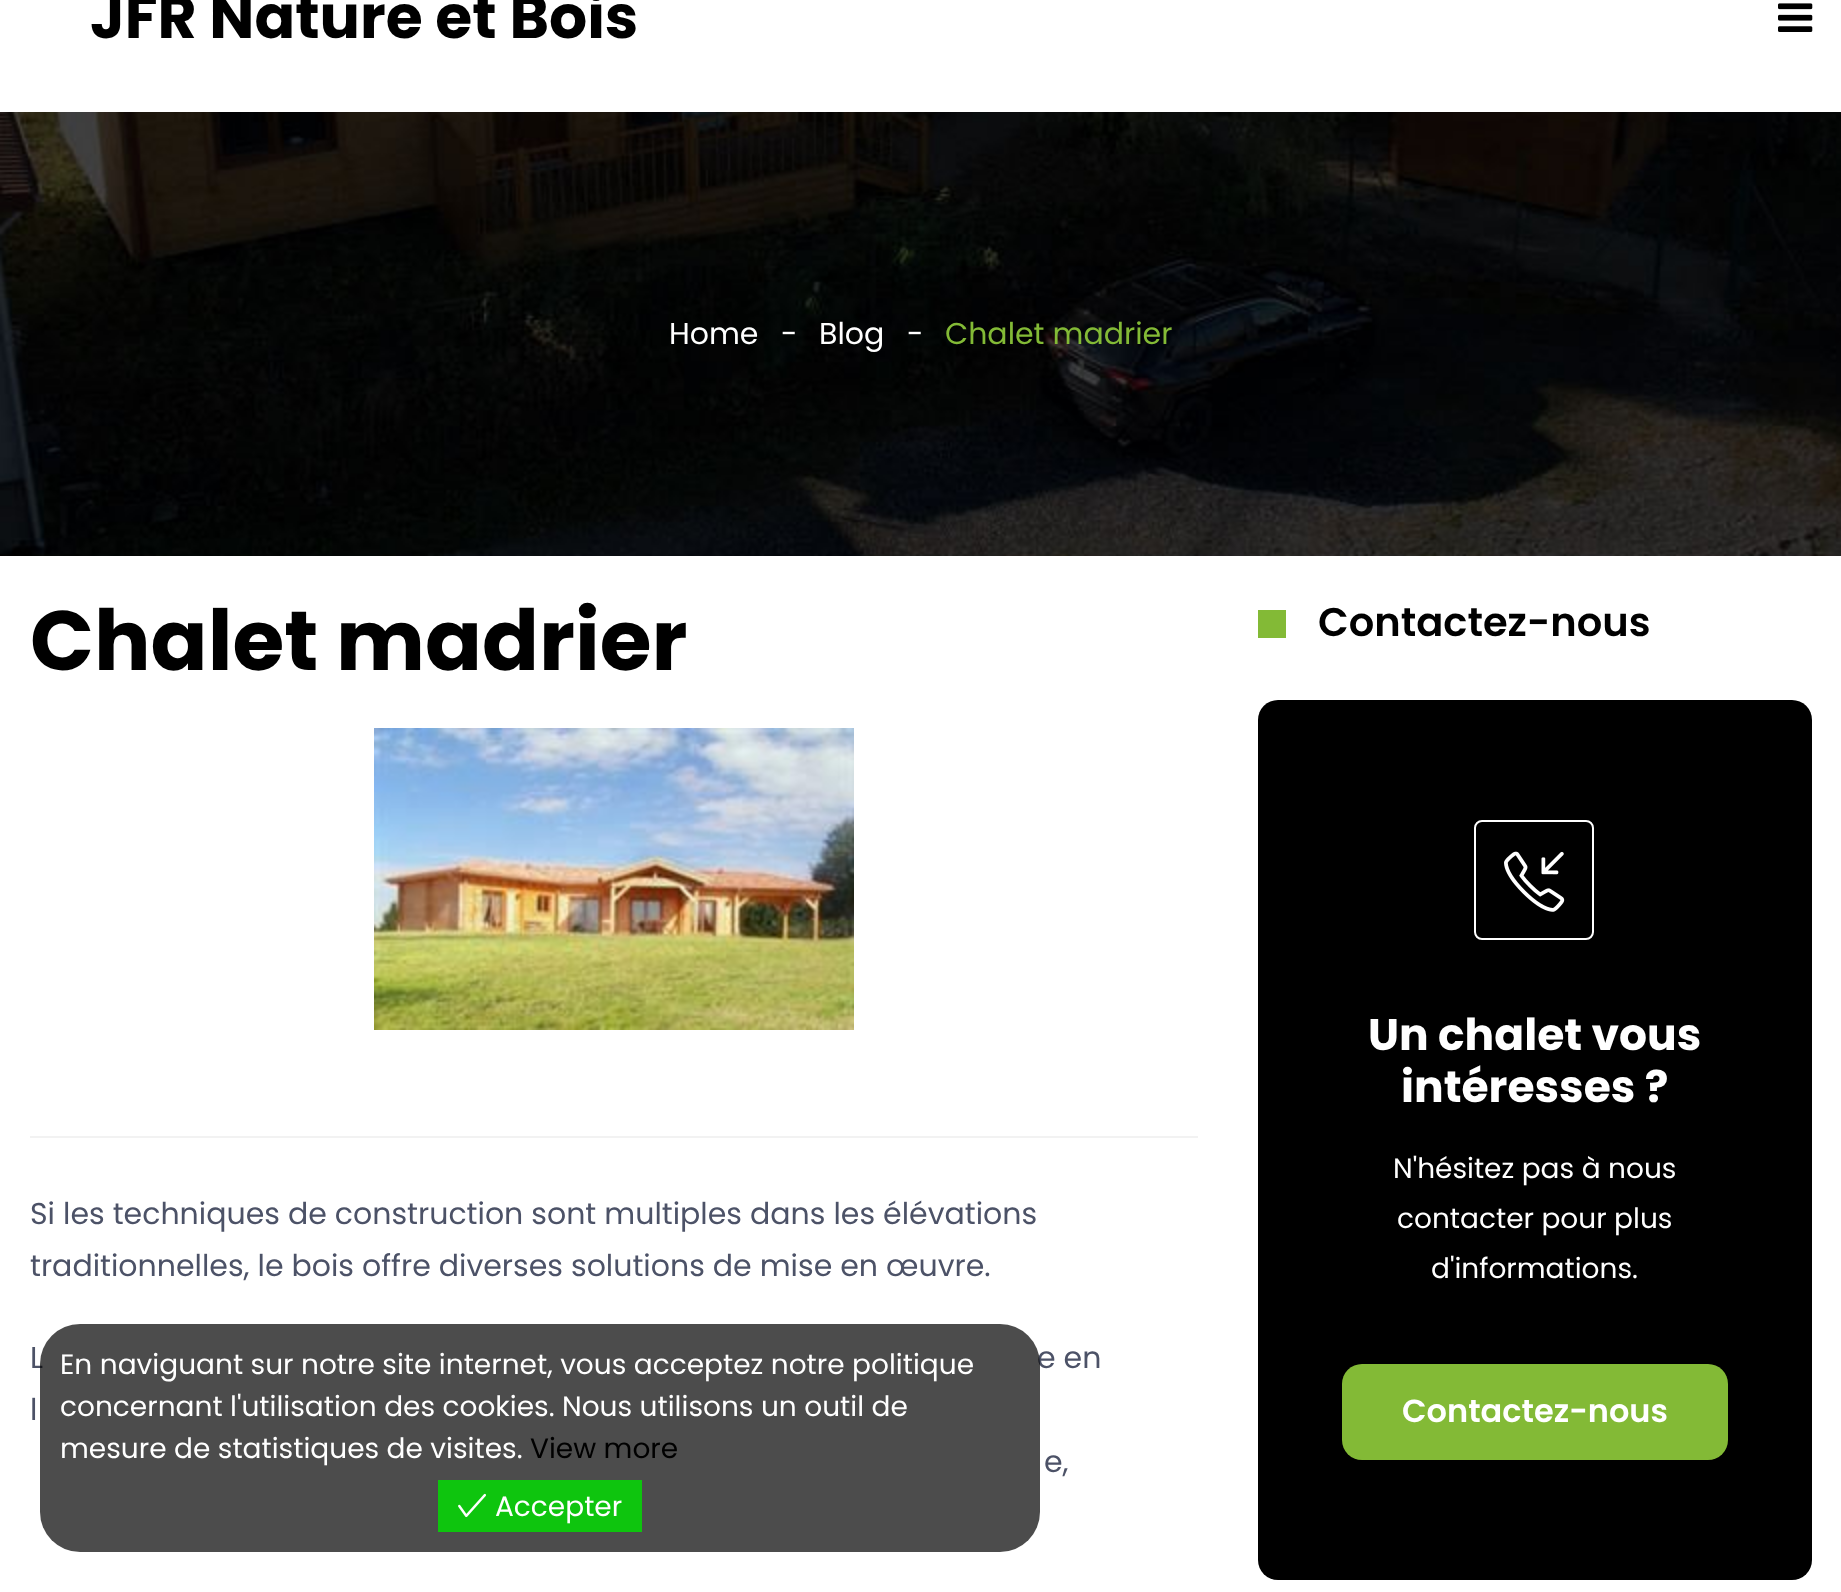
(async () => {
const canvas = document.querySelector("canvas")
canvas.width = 1841
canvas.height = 1592
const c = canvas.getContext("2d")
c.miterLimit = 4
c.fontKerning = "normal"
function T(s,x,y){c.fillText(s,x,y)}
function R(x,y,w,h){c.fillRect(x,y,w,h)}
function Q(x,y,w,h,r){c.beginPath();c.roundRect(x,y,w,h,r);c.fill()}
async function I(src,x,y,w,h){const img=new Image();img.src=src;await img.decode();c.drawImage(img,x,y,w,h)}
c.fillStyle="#fff"
R(0,0,1841,1592)
c.font="bold 60px Poppins"
c.fillStyle="#000"
T("JFR Nature et Bois",90,38)
await I("1.png",1778,3,35,29)
await I("2.png",0,112,1841,444)
c.font="30px Poppins"
c.fillStyle="#fff"
T("Home",669,344)
T("-",781,344)
T("Blog",819,344)
T("-",907,344)
c.fillStyle="#83ba36"
T("Chalet madrier",945,344)
c.font="bold 84px Poppins"
c.fillStyle="#000"
T("Chalet madrier",30,670)
await I("3.png",374,728,480,302)
c.fillStyle="#f2f2f2"
R(30,1136,1168,2)
c.font="30px Poppins"
c.fillStyle="#4c5267"
T("Si les techniques de construction sont multiples dans les élévations",30,1224)
T("traditionnelles, le bois offre diverses solutions de mise en œuvre.",30,1276)
T("L",30,1368)
T("e en",1037,1368)
T("l",30,1420)
T("e,",1044,1472)
c.fillStyle="#83ba36"
R(1258,610,28,28)
c.font="600 40px Poppins"
c.fillStyle="#000"
T("Contactez-nous",1318,636)
Q(1258,700,554,880,20)
c.beginPath()
c.roundRect(1475,821,118,118,7)
c.strokeStyle="#fff"
c.lineWidth=2
c.stroke()
await I("4.png",1504,851,61,61)
c.font="bold 44px Poppins"
c.fillStyle="#fff"
T("Un chalet vous",1368,1050)
T("intéresses ?",1401,1102)
c.font="28px Poppins"
T("N'hésitez pas à nous",1393,1178)
T("contacter pour plus",1397,1228)
T("d'informations.",1431,1278)
c.fillStyle="#83ba36"
Q(1342,1364,386,96,20)
c.font="600 32px Poppins"
c.fillStyle="#fff"
T("Contactez-nous",1402,1422)
c.fillStyle="#000000b3"
Q(40,1324,1000,228,40)
c.font="28px Poppins"
c.fillStyle="#fff"
T("En naviguant sur notre site internet, vous acceptez notre politique",60,1374)
T("concernant l'utilisation des cookies. Nous utilisons un outil de",60,1416)
T("mesure de statistiques de visites.",60,1458)
c.fillStyle="#000"
T("View more",530,1458)
c.fillStyle="#0ec50e"
R(438,1480,204,52)
await I("5.png",458,1493,28,25)
c.fillStyle="#fff"
T("Accepter",495,1516)
})()
